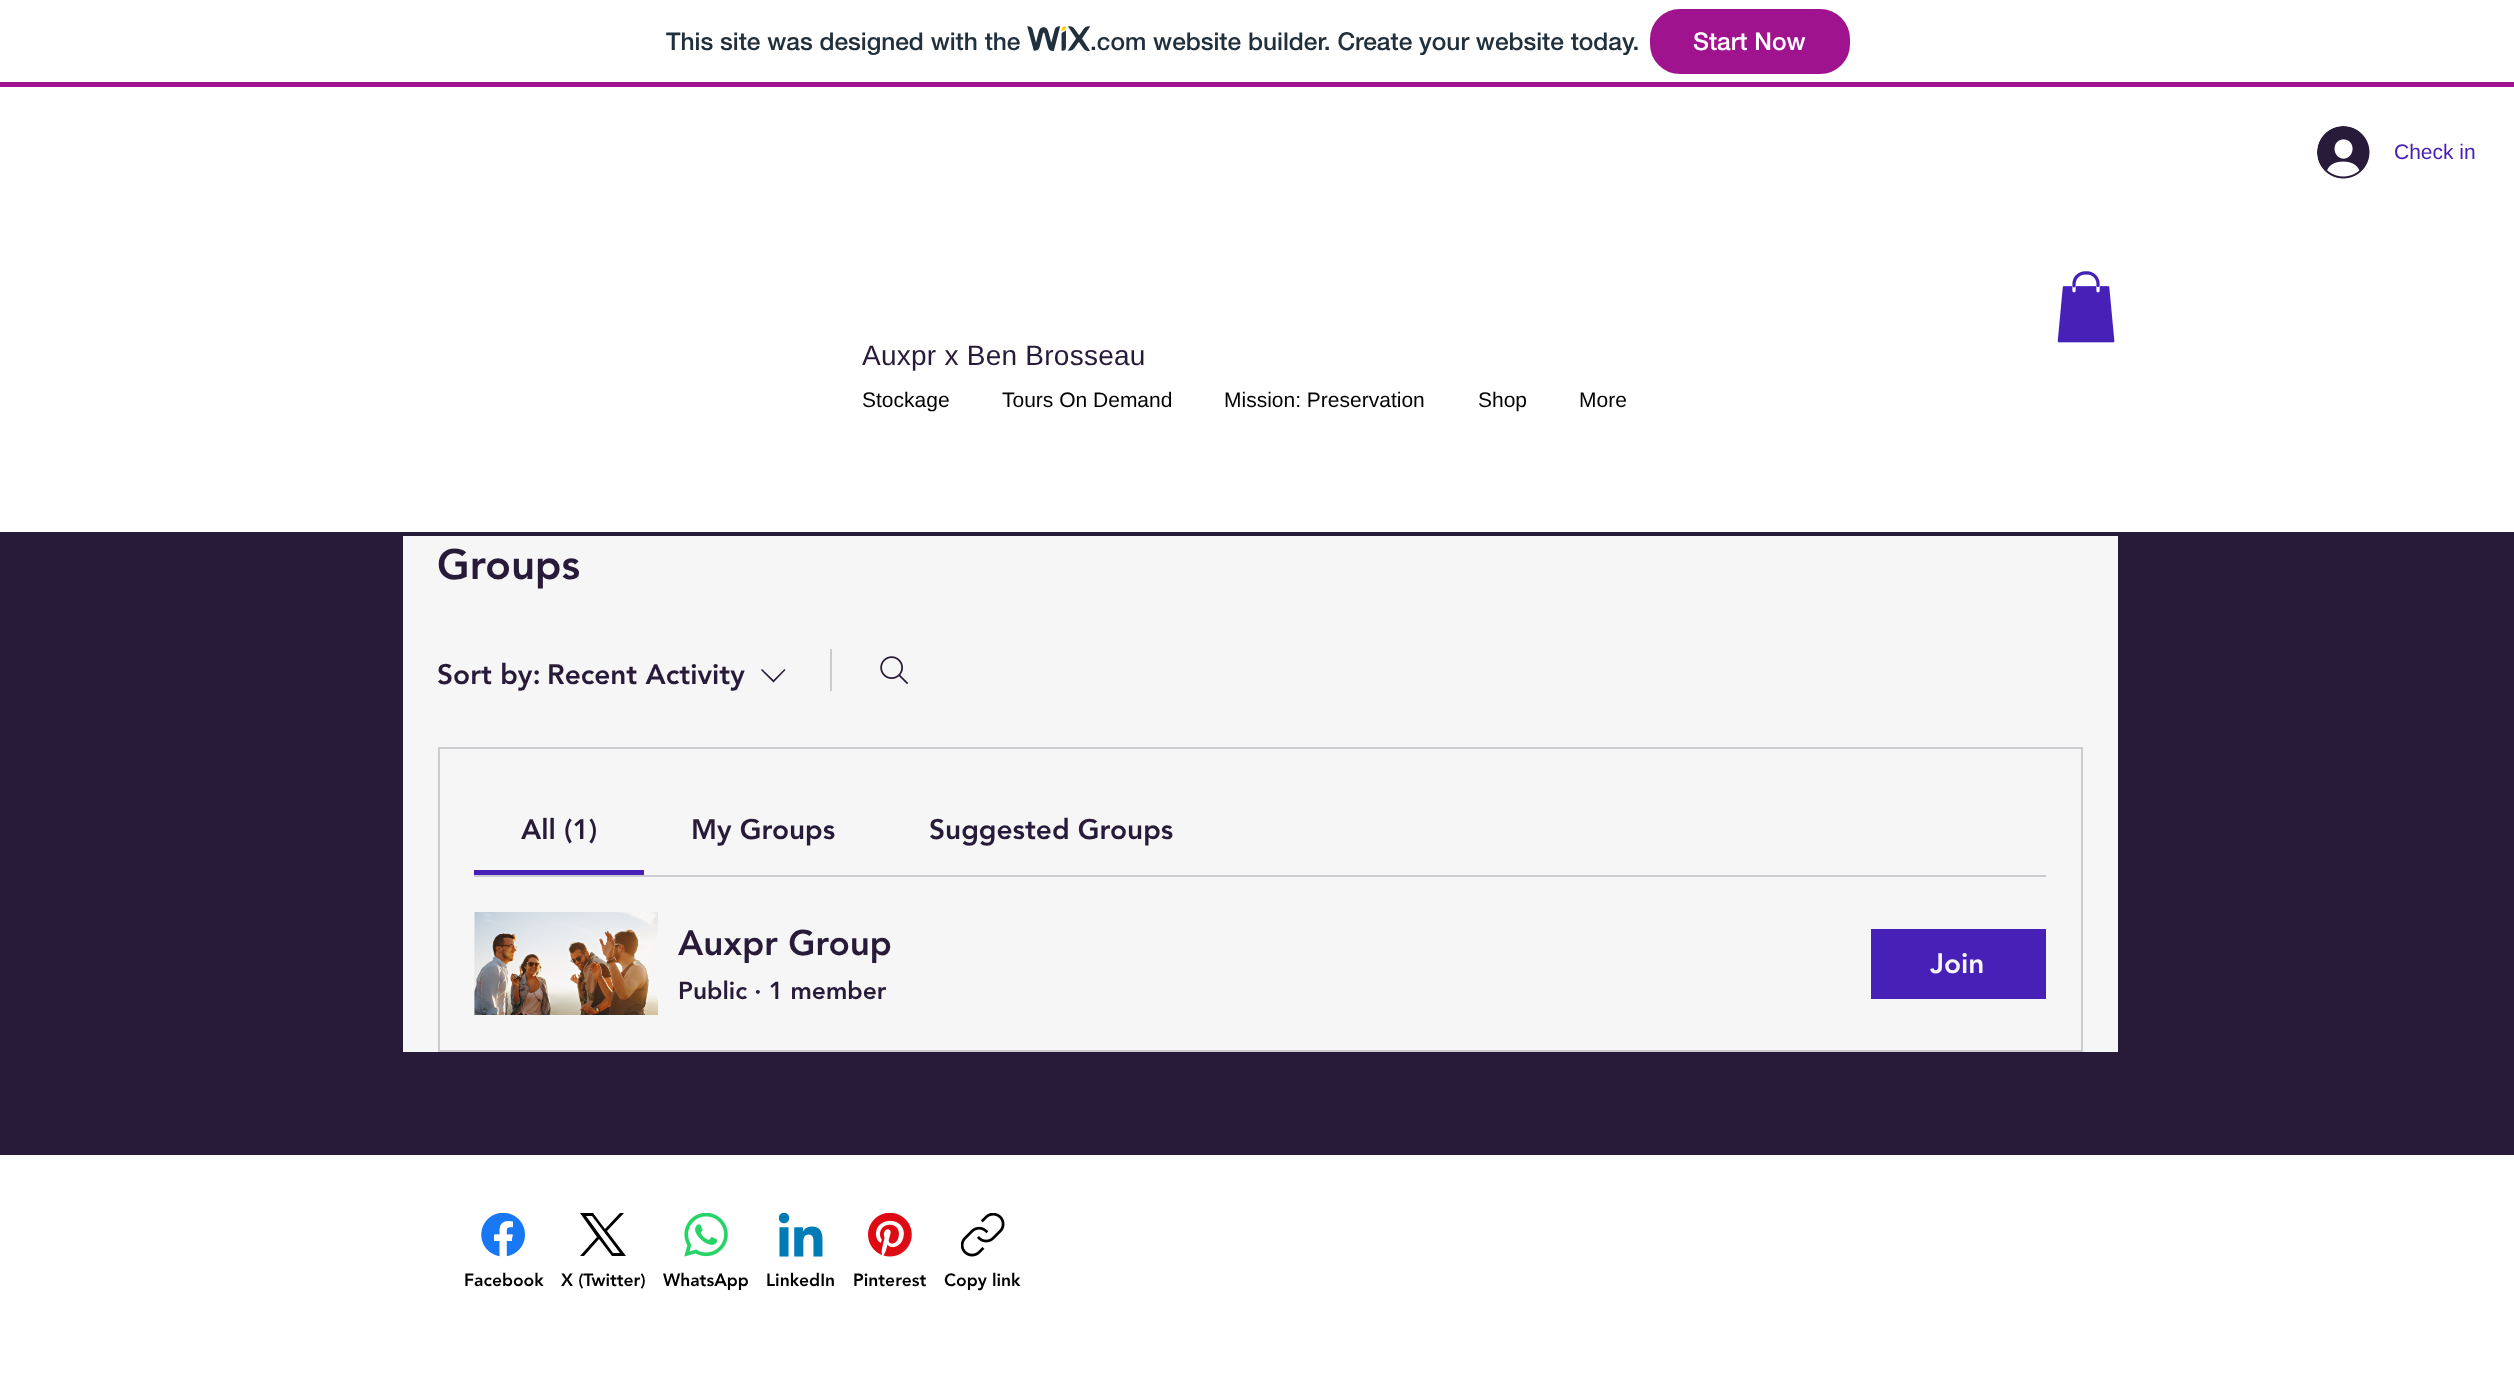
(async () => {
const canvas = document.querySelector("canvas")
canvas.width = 2514
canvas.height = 1392
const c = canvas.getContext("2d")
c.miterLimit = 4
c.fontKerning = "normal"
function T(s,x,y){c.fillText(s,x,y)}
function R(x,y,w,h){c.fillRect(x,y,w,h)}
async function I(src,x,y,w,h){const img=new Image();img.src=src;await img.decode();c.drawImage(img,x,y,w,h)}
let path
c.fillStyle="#fff"
R(0,0,2514,1392)
c.fillStyle="#a0138e"
R(0,82,2514,5)
c.font="500 24.5px 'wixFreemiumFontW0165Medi'"
c.fillStyle="#20303c"
T("This site was designed with the",666,50)
await I("1.png",1027,26,63,26)
T(".com website builder. Create your website today.",1090,50)
c.fillStyle="#a0138e"
c.beginPath()
c.roundRect(1651,10,198,63,29)
c.fill()
c.strokeStyle="#a0138e"
c.lineWidth=2
c.stroke()
c.fillStyle="#fff"
T("Start Now",1693,50)
await I("2.png",2317,126,53,53)
c.font="21px Liberation Sans"
c.fillStyle="#4720b7"
T("Check in",2394,159)
await I("3.png",2057,271,58,72)
c.letterSpacing="0.25px"
c.font="28px Liberation Sans"
c.fillStyle="#281a39"
T("Auxpr x Ben Brosseau",862,365)
c.letterSpacing="0px"
c.font="21px Liberation Sans"
c.fillStyle="#000"
T("Stockage",862,407)
T("Tours On Demand",1002,407)
T("Mission: Preservation",1224,407)
T("Shop",1478,407)
T("More",1579,407)
c.fillStyle="#281a39"
R(0,532,2514,623)
c.fillStyle="#f6f6f6"
R(403,536,1715,516)
c.font="900 42px 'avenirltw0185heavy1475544'"
c.fillStyle="#281a39"
T("Groups",437,579)
c.font="900 28px 'avenirltw0185heavy1475544'"
T("Sort by:",437,684)
T("Recent Activity",547,684)
path = new Path2D("M784.5 669l1 1l-12 12.5l-12.5-12.5l1-1l11.5 11z")
c.fill(path,"evenodd")
c.fillStyle="#cdcad0"
R(830,649,2,42)
await I("4.png",880,656,29,29)
c.strokeStyle="#cdcad0"
c.strokeRect(439,748,1643,303)
R(474,875,1572,2)
c.fillStyle="#4720b7"
R(474,870,170,5)
c.fillStyle="#281a39"
T("All (1)",521,839)
T("My Groups",691,839)
T("Suggested Groups",929,839)
await I("5.png",474,912,184,103)
c.font="900 35px 'avenirltw0185heavy1475544'"
T("Auxpr Group",678,955)
c.font="900 24.5px 'avenirltw0185heavy1475544'"
T("Public · 1 member",678,999)
c.fillStyle="#4720b7"
R(1871,929,175,70)
c.font="900 28px 'avenirltw0185heavy1475544'"
c.fillStyle="#f6f6f6"
T("Join",1930,973)
await I("6.png",481,1213,44,44)
c.font="900 17.5px 'avenirltw0185heavy1475544'"
c.fillStyle="#000"
T("Facebook",464,1286)
path = new Path2D("M580 1213l17 24l-17 19h4l15-17l13 17h14l-19-25l17-18h-4l-15 16l-12-16zm6 3h6l28 37h-7z")
c.fill(path)
T("X (Twitter)",561,1286)
await I("7.png",684,1213,44,44)
T("WhatsApp",663,1286)
await I("8.png",779,1213,44,44)
T("LinkedIn",766,1286)
await I("9.png",868,1213,44,44)
T("Pinterest",853,1286)
await I("10.png",961,1213,44,44)
T("Copy link",944,1286)
})()
